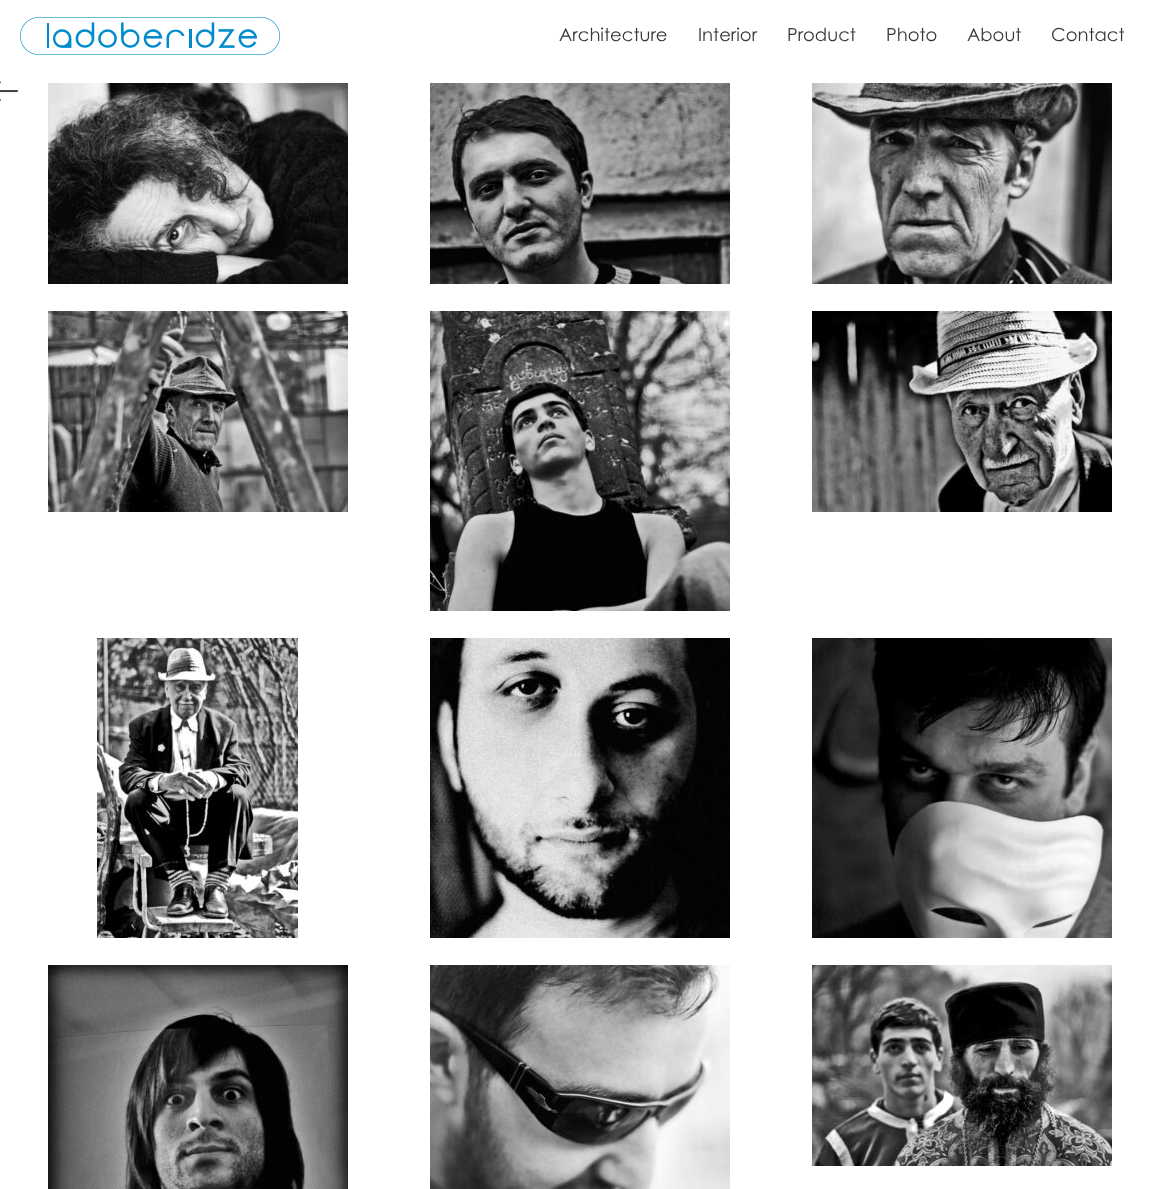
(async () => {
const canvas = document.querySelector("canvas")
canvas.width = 1160
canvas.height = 1189
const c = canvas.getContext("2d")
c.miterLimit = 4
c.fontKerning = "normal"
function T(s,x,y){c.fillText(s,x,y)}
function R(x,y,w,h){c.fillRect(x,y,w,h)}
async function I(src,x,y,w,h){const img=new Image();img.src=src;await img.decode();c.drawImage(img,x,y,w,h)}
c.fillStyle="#fff"
R(0,0,1160,1189)
await I("1.png",20,17,260,38)
c.font="18px Century Gothic"
c.fillStyle="#373737"
T("Architecture",559,41)
T("Interior",698,41)
T("Product",787,41)
T("Photo",886,41)
T("About",967,41)
T("Contact",1051,41)
await I("2.png",0,81,18,20)
await I("3.png",48,83,300,201)
await I("4.png",430,83,300,201)
await I("5.png",812,83,300,201)
await I("6.png",48,311,300,201)
await I("7.png",430,311,300,300)
await I("8.png",812,311,300,201)
await I("9.png",97,638,201,300)
await I("10.png",430,638,300,300)
await I("11.png",812,638,300,300)
await I("12.png",48,965,300,224)
await I("13.png",430,965,300,224)
await I("14.png",812,965,300,201)
})()
